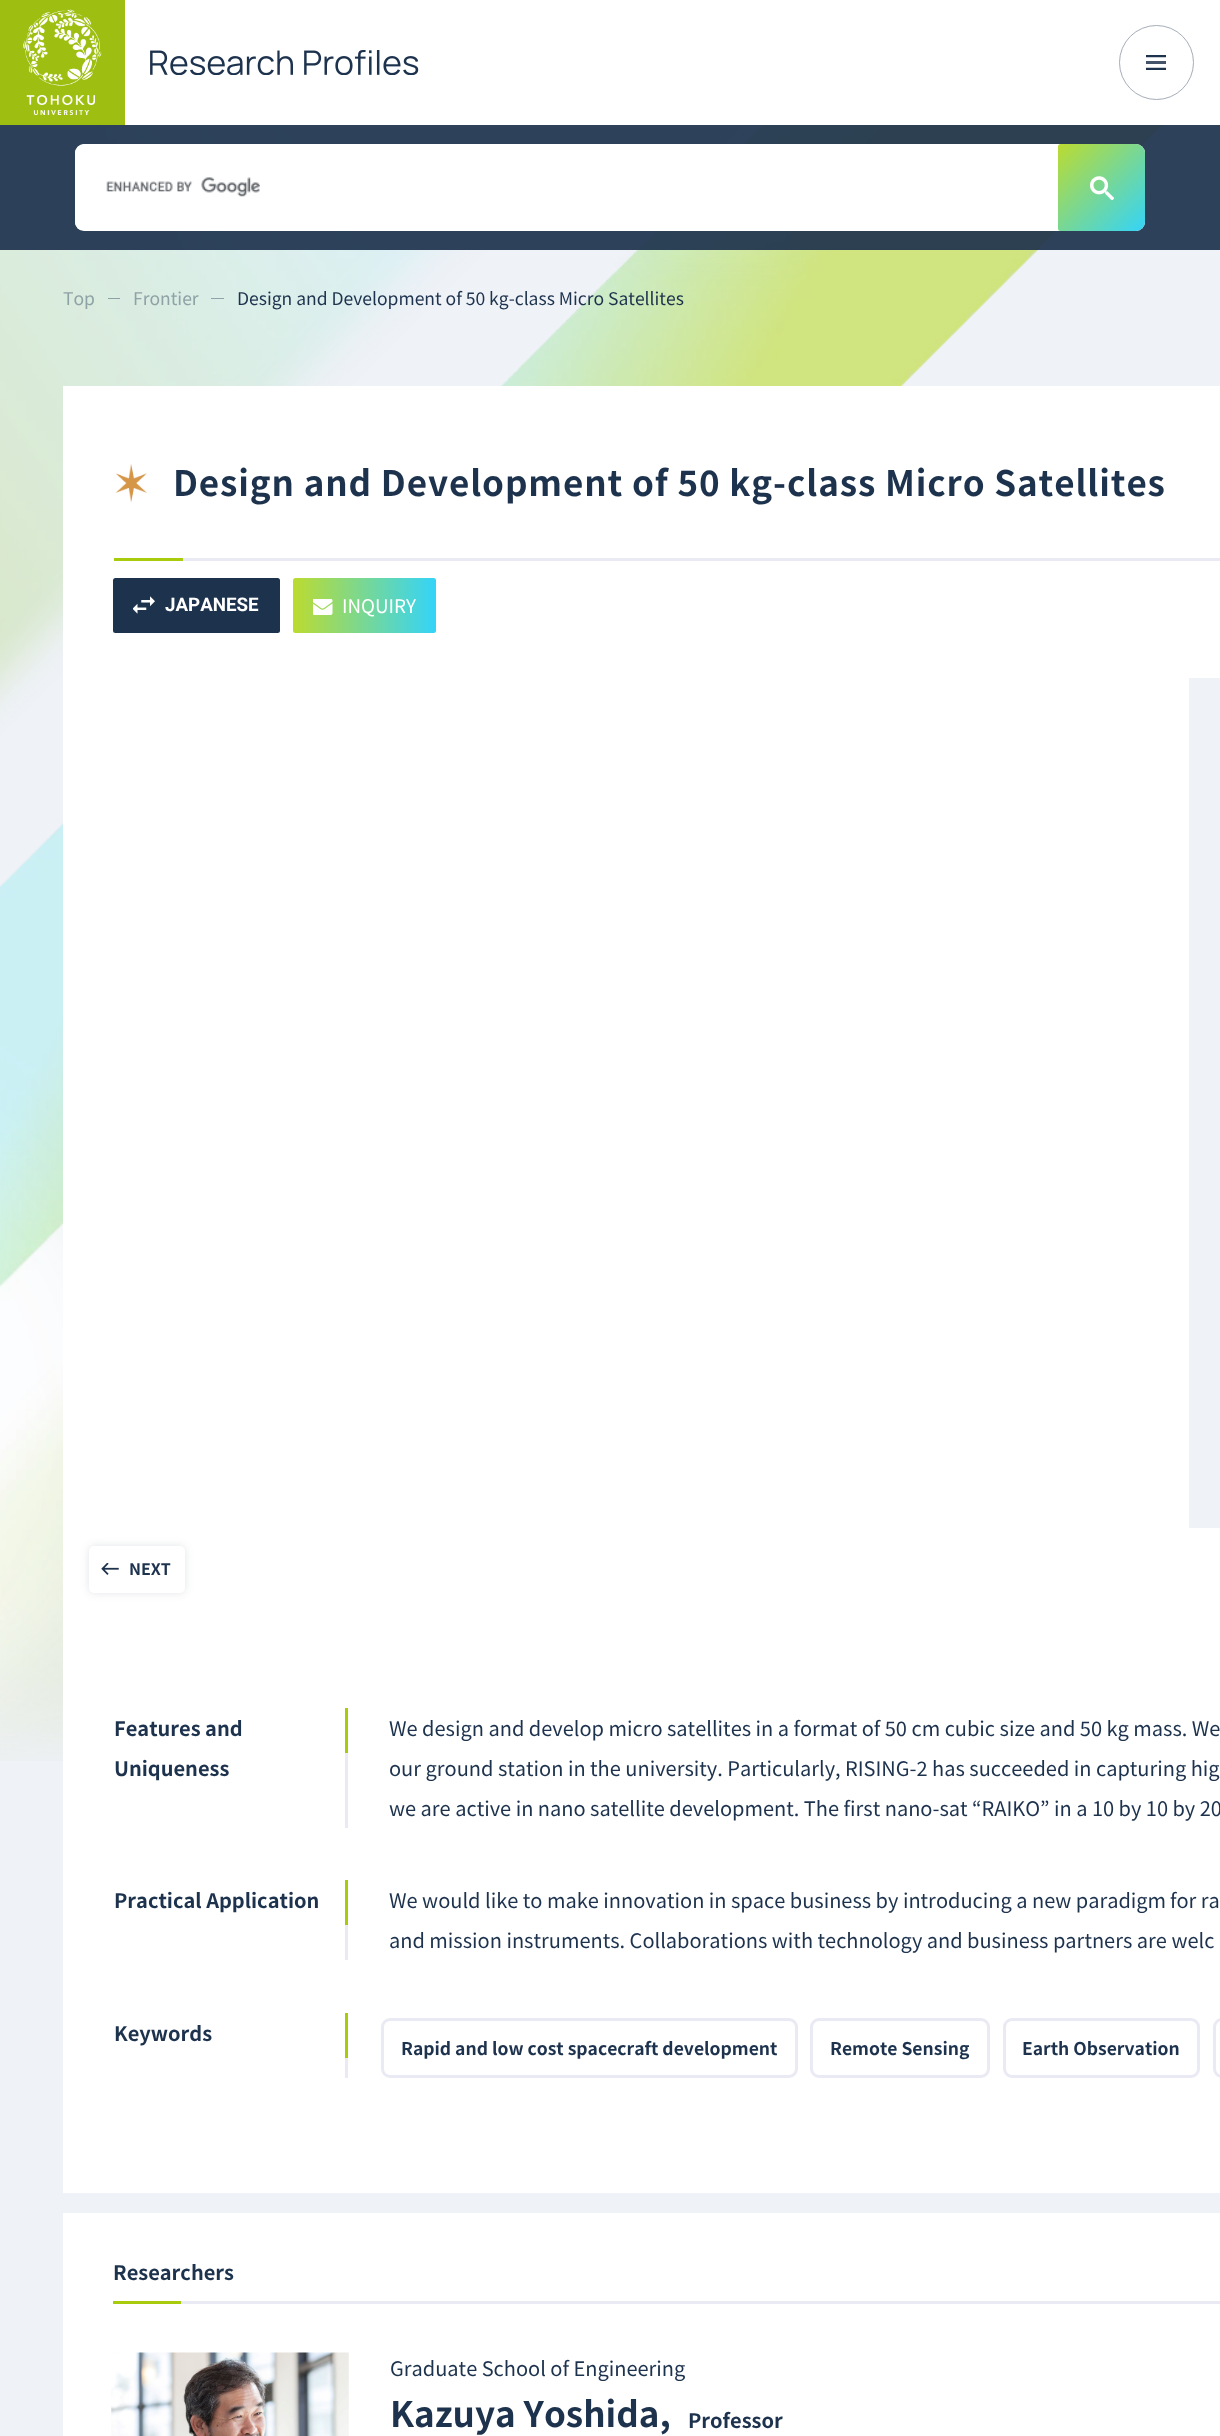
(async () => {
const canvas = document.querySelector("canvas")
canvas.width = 1220
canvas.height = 2436
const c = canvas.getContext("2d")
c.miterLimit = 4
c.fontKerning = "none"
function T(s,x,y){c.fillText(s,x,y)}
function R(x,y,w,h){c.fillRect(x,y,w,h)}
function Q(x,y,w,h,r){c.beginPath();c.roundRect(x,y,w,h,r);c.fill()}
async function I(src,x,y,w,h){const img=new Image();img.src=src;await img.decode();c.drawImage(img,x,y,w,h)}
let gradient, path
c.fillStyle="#eff2f7"
R(0,0,1220,2436)
await I("1.png",0,125,1164,1636)
c.fillStyle="#fff"
R(125,0,1095,125)
await I("2.png",0,0,125,125)
await I("3.png",150,50,269,25)
c.beginPath()
c.arc(1156.5,62.5,37,0,7)
c.strokeStyle="#a5adb8"
c.stroke()
c.save()
c.beginPath()
c.rect(1146,55,20,15)
c.clip()
path = new Path2D("M1146 55h20v15h-20z")
c.clip(path)
path = new Path2D("M1146 56h23")
c.strokeStyle="#1d324d"
c.lineWidth=2.5
c.stroke(path)
c.restore()
c.fillStyle="#43546b"
R(1146,61,20,3)
c.save()
c.beginPath()
c.rect(1146,55,20,15)
c.clip()
path = new Path2D("M1146 55h20v15h-20z")
c.clip(path)
path = new Path2D("M1146 69h23")
c.strokeStyle="#1d324d"
c.lineWidth=2.5
c.stroke(path)
c.restore()
c.fillStyle="#1d324deb"
R(0,125,1220,125)
c.fillStyle="#fff"
Q(75,144,1070,87,9)
c.save()
c.beginPath()
c.roundRect(75,144,1070,87,9)
c.clip()
c.beginPath()
c.roundRect(75,144,983,86,[9,0,0,0])
c.fill()
c.restore()
await I("4.png",106,177,154,20)
gradient = c.createLinearGradient(1058,144,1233,319)
gradient.addColorStop(0,"#bcdb30")
gradient.addColorStop(.5,"#33d4fa")
gradient.addColorStop(1,"#bcdb30")
c.fillStyle = gradient
c.beginPath()
c.roundRect(1058,144,87,87,[2.5,9,9,2.5])
c.fill()
await I("5.png",1090,176,24,24)
c.font="17.5px Noto Sans JP"
c.fillStyle="#8fa2a5"
T("Top",63,305)
c.fillStyle="#8ea2a6"
R(108,298,12,1)
c.fillStyle="#8fa2a5"
T("Frontier",133,305)
c.fillStyle="#8fa3aa"
R(211,298,13,1)
c.fillStyle="#1d324d"
T("Design and Development of 50 kg-class Micro Satellites",237,305)
c.fillStyle="#fff"
R(63,386,1157,1807)
await I("6.png",115,464,32,39)
c.letterSpacing="0.88px"
c.font="bold 35px Noto Sans JP"
c.fillStyle="#1d324d"
T("Design and Development of 50 kg-class Micro Satellites",173,496)
c.fillStyle="#e9eaf4"
R(183,558,1037,3)
c.fillStyle="#a8cc0c"
R(114,558,69,3)
c.fillStyle="#1d324d"
Q(113,578,167,55,2.5)
await I("7.png",133,596,22,18)
c.letterSpacing="0px"
c.font="bold 18.75px Roboto"
c.fillStyle="#fff"
T("JAPANESE",165,611)
gradient = c.createLinearGradient(293,605,580,605)
gradient.addColorStop(0,"#bcdb30")
gradient.addColorStop(.5,"#33d4fa")
gradient.addColorStop(1,"#bcdb30")
c.fillStyle = gradient
Q(293,578,143,55,2.5)
await I("8.png",313,599,20,16)
c.font="18.75px Noto Sans JP"
c.fillStyle="#fff"
T("INQUIRY",342,613)
c.fillStyle="#eff2f7"
R(1189,678,31,850)
c.fillStyle="#1d324d21"
c.filter="blur(4px)"
c.beginPath()
c.roundRect(89,1546,96,47,5)
c.fill()
c.filter="none"
c.fillStyle="#fff"
Q(89,1546,96,47,5)
await I("9.png",101,1563,18,12)
c.font="bold 16px Noto Sans JP"
c.fillStyle="#1d324d"
T("NEXT",129,1575)
c.font="bold 20px Noto Sans JP"
T("Features and",114,1736)
T("Uniqueness",114,1776)
c.fillStyle="#e9eaf4"
R(345,1753,3,75)
c.fillStyle="#a8cc0c"
R(345,1708,3,45)
c.font="20px Noto Sans JP"
c.fillStyle="#1d324d"
T("We design and develop micro satellites in a format of 50 cm cubic size and 50 kg mass. We",389,1736)
T("our ground station in the university. Particularly,",389,1776)
T("RISING-2 has succeeded in capturing hig",845,1776)
T("we are active in nano satellite development. The first nano-sat “RAIKO” in a 10 by 10 by 20",389,1816)
c.font="bold 20px Noto Sans JP"
T("Practical Application",114,1908)
c.fillStyle="#e9eaf4"
R(345,1925,3,35)
c.fillStyle="#a8cc0c"
R(345,1880,3,45)
c.font="20px Noto Sans JP"
c.fillStyle="#1d324d"
T("We would like to make innovation in space business by introducing a new paradigm",389,1908)
T("for ra",1170,1908)
T("and mission instruments. Collaborations with technology and business partners are welc",389,1948)
c.font="bold 20px Noto Sans JP"
T("Keywords",114,2041)
c.fillStyle="#e9eaf4"
R(345,2058,3,20)
c.fillStyle="#a8cc0c"
R(345,2013,3,45)
c.beginPath()
c.roundRect(382.5,2019.5,414,57,7.5)
c.strokeStyle="#e9eaf4"
c.lineWidth=3
c.stroke()
c.font="bold 17.5px Noto Sans JP"
c.fillStyle="#1d324d"
T("Rapid and low cost spacecraft development",401,2055)
c.beginPath()
c.roundRect(811.5,2019.5,177,57,7.5)
c.stroke()
T("Remote Sensing",830,2055)
c.beginPath()
c.roundRect(1004.5,2019.5,194,57,7.5)
c.stroke()
T("Earth Observation",1022,2055)
c.beginPath()
c.roundRect(1214.5,2019.5,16,57,7.5)
c.stroke()
c.fillStyle="#fff"
R(63,2213,1157,223)
c.fillStyle="#e9eaf4"
R(181,2301,1039,3)
c.font="bold 20px Noto Sans JP"
c.fillStyle="#1d324d"
T("Researchers",113,2280)
c.fillStyle="#a8cc0c"
R(113,2301,68,3)
await I("10.png",111,2352,238,84)
c.font="20px Noto Sans JP"
c.fillStyle="#1d324d"
T("Graduate School of Engineering",390,2376)
c.font="bold 35px Noto Sans JP"
T("Kazuya Yoshida,",390,2427)
c.font="bold 20px Noto Sans JP"
T("Professor",688,2428)
})()
